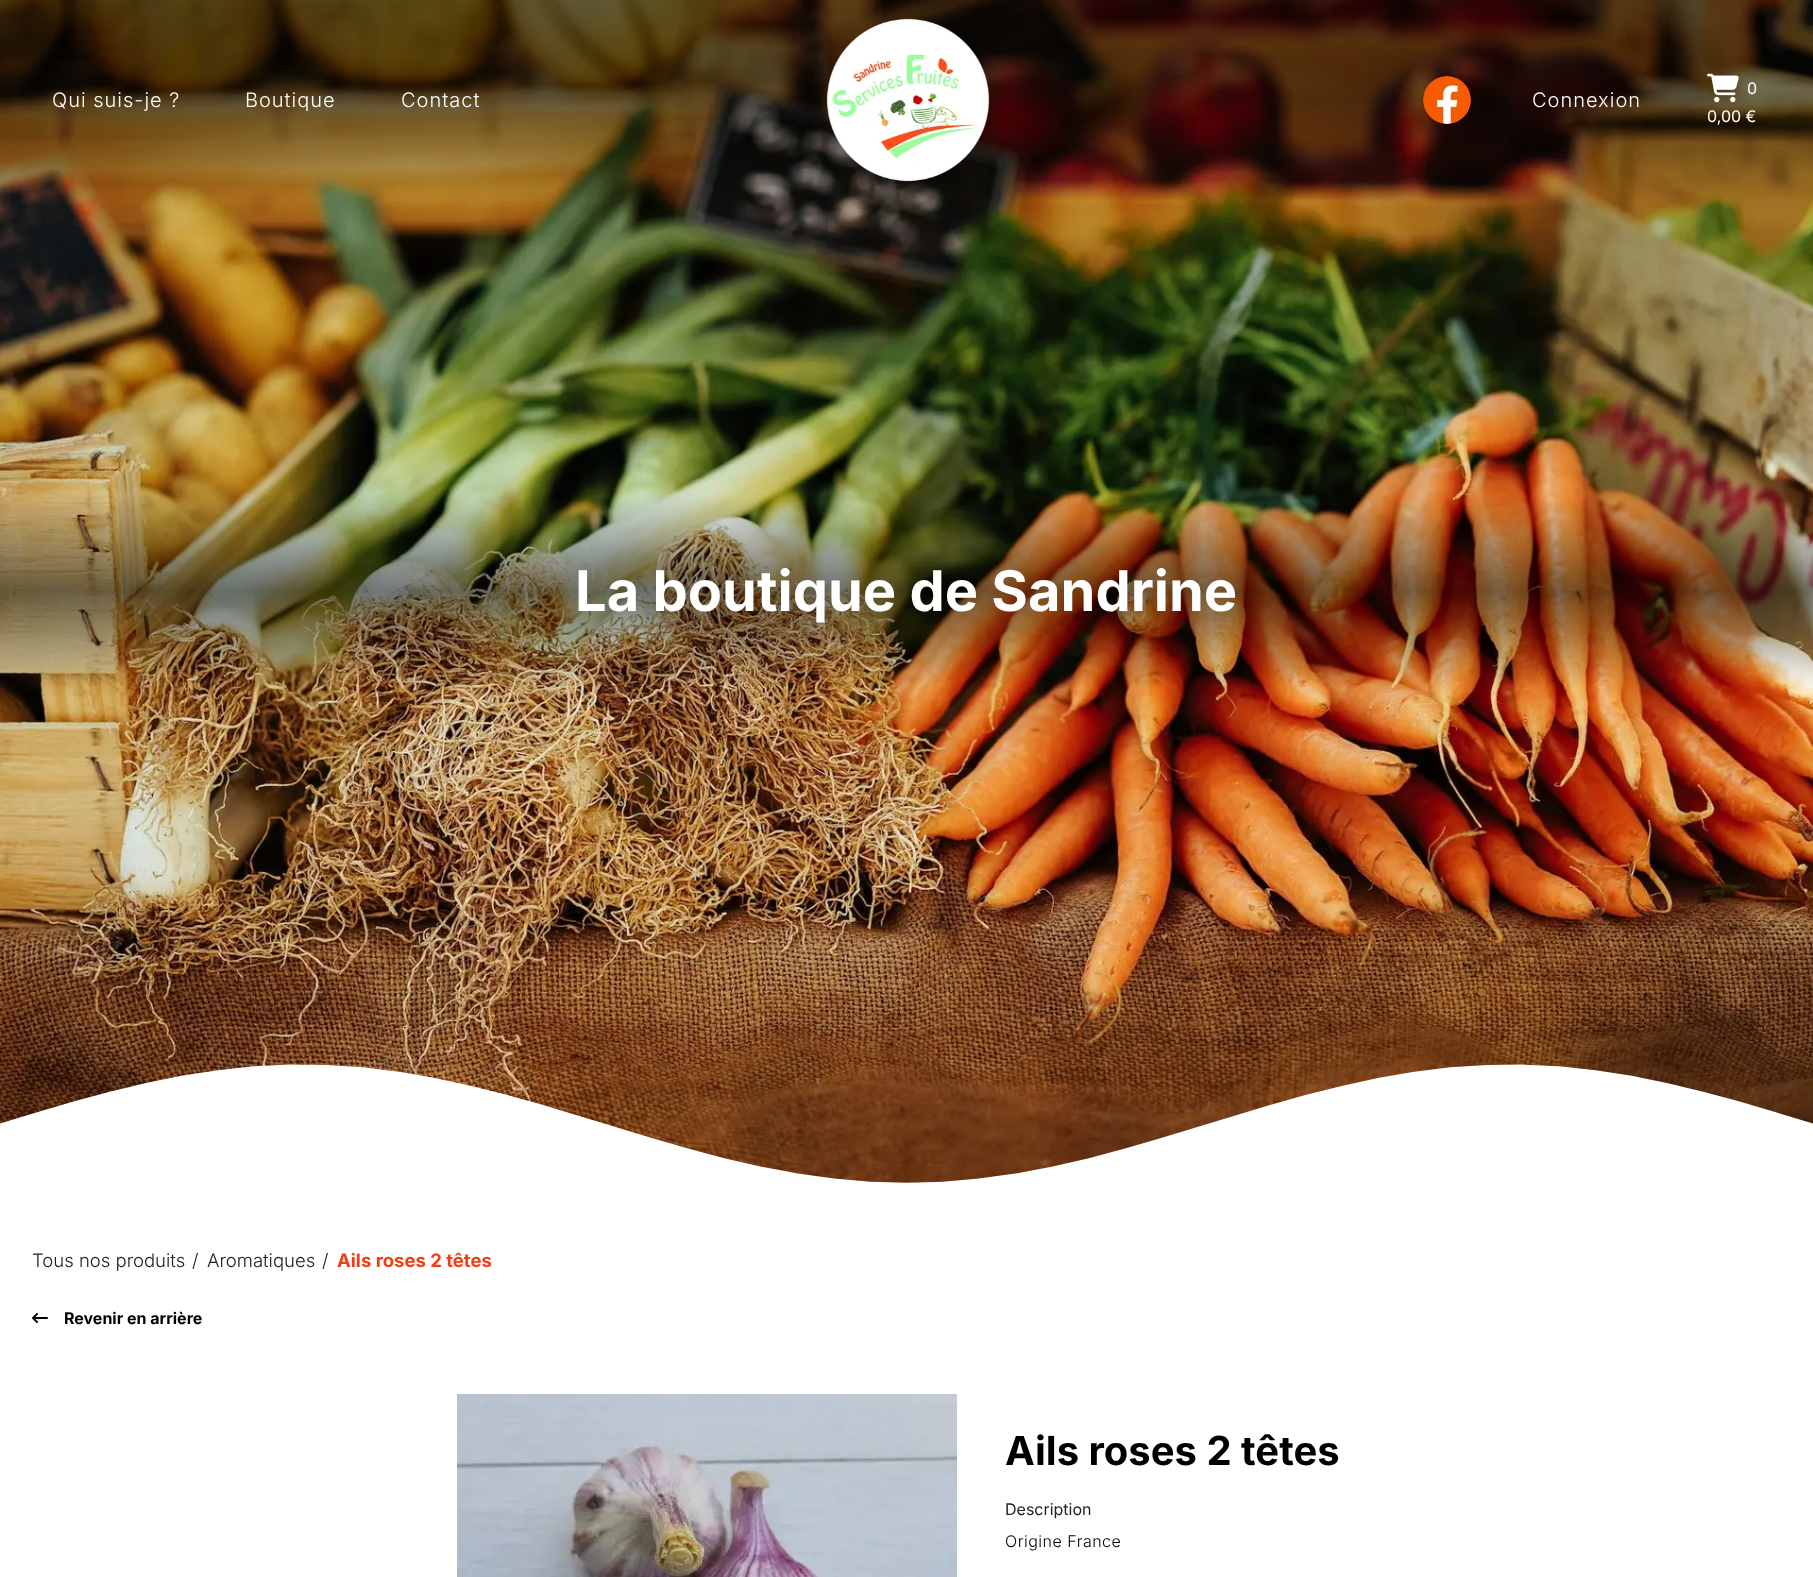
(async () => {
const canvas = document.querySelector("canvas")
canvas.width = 1813
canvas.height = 1577
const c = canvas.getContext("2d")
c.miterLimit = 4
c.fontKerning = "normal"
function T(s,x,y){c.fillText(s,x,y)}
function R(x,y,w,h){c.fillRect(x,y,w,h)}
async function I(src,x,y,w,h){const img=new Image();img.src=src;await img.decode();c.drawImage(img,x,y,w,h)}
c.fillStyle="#fff"
R(0,0,1813,1577)
await I("4.png",0,0,1813,1183)
c.letterSpacing="1px"
c.font="300 20px Inter"
T("Qui suis-je ?",52,107)
T("Boutique",245,107)
T("Contact",401,107)
await I("1.png",826,18,164,164)
await I("2.png",1423,76,48,48)
T("Connexion",1532,107)
await I("3.png",1707,73,32,30)
c.letterSpacing="0px"
c.font="16px Inter"
T("0",1747,94)
T("0,00 €",1707,122)
c.font="bold 56px Inter"
T("La boutique de Sandrine",575,611)
c.font="300 18.5px Inter"
c.fillStyle="#222"
T("Tous nos produits",32,1267)
T("/",192,1267)
T("Aromatiques",207,1267)
T("/",322,1267)
c.font="bold 18.5px Inter"
c.fillStyle="#f43d15"
T("Ails roses 2 têtes",337,1267)
await I("5.png",32,1313,16,10)
c.font="bold 16px Inter"
c.fillStyle="#000"
T("Revenir en arrière",64,1324)
await I("6.png",457,1394,500,183)
c.font="bold 40px Inter"
T("Ails roses 2 têtes",1005,1465)
c.font="16px Inter"
c.fillStyle="#222"
T("Description",1005,1515)
c.letterSpacing="0.5px"
c.font="300 16px Inter"
c.fillStyle="#000"
T("Origine France",1005,1547)
})()
